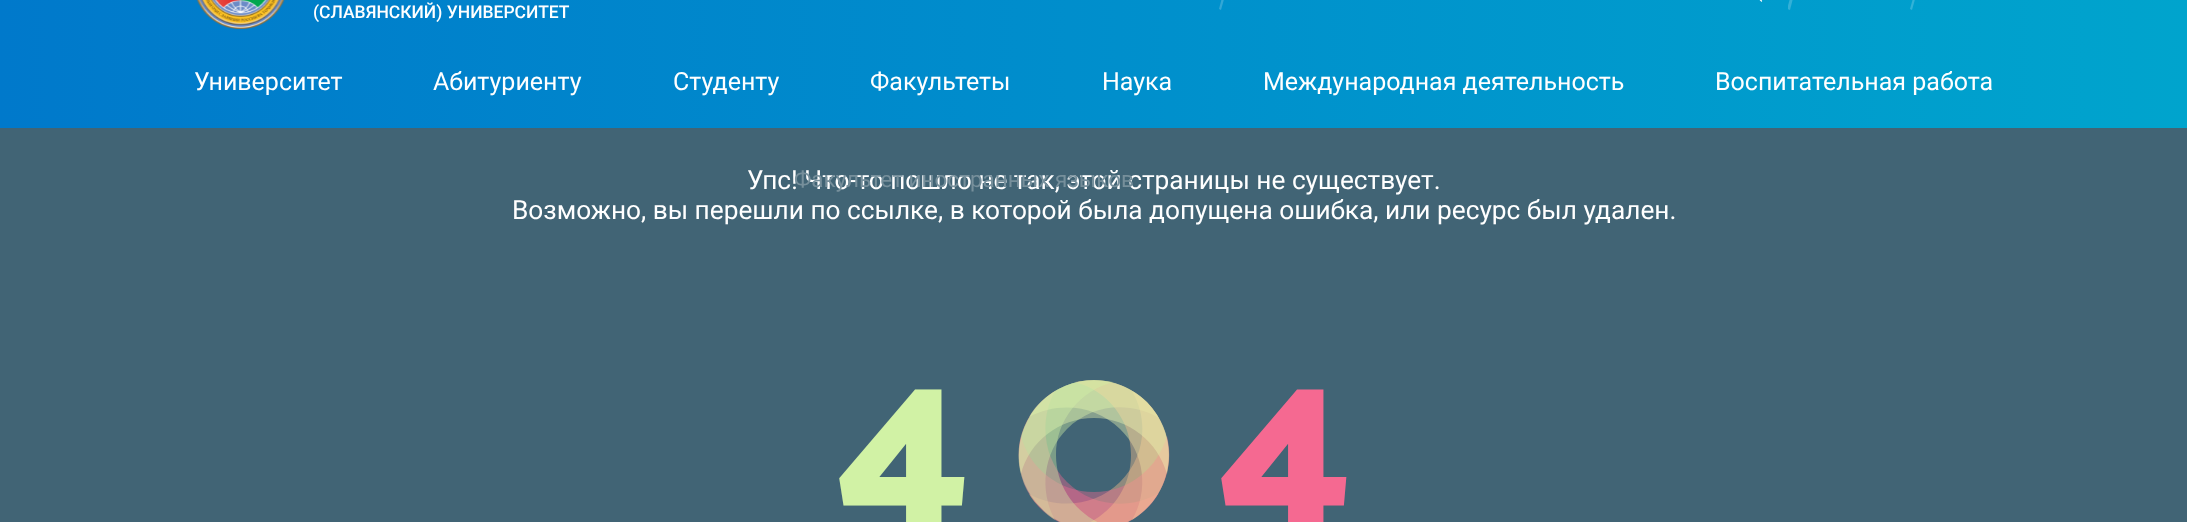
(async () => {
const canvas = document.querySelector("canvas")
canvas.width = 2187
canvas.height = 522
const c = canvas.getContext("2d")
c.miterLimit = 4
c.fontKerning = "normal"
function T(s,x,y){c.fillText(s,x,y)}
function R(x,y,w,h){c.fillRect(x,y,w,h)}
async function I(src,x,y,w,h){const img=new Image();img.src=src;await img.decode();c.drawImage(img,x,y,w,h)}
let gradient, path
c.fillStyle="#416475"
R(0,0,2187,522)
gradient = c.createLinearGradient(0,16,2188,16)
gradient.addColorStop(0,"#0079cb")
gradient.addColorStop(1,"#00a4cd")
c.fillStyle = gradient
R(0,0,2187,128)
await I("1.png",196,0,89,29)
c.font="500 17.5px Roboto"
c.fillStyle="#fff"
T("(СЛАВЯНСКИЙ) УНИВЕРСИТЕТ",313,18)
c.fillStyle="#33a7d6"
path = new Path2D("M1233-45l3 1l-15 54l-2-1z")
c.fill(path)
path = new Path2D("M1749-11l12.5 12")
c.strokeStyle="#fff"
c.lineWidth=1.2
c.lineCap="round"
c.lineJoin="round"
c.stroke(path)
c.save()
c.beginPath()
c.rect(1788,0,17,10)
c.clip()
c.fillStyle="#33b0d7"
path = new Path2D("M1802-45l2 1l-14 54l-3-1z")
c.fill(path)
c.restore()
c.fillStyle="#33b2d7"
path = new Path2D("M1925-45l2 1l-15 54l-2-1z")
c.fill(path)
c.font="25px Roboto"
c.fillStyle="#fff"
T("Университет",194,90)
T("Абитуриенту",433,90)
T("Студенту",673,90)
T("Факультеты",870,90)
c.font="26.25px Roboto"
T("Упс! Что-то пошло не так, этой страницы не существует.",747,189)
c.font="22.5px Roboto"
c.fillStyle="#768f9b"
T("Факультет иностранных языков",794,187)
c.font="25px Roboto"
c.fillStyle="#fff"
T("Наука",1102,90)
T("Международная деятельность",1263,90)
T("Воспитательная работа",1715,90)
c.font="26.25px Roboto"
T("Возможно, вы перешли по ссылке, в которой была допущена ошибка, или ресурс был удален.",512,219)
c.font="800 225px Catamaran"
c.fillStyle="#d1f2a5"
T("4",837,518)
c.fillStyle="#896680"
path = new Path2D("M1159 493c-29 17-67 14-92-11c-24-24-28-62-12-91c-18 11-31 29-35 50c-3 14-1 29 4 43c24 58 104 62 135 9z")
c.fill(path)
c.fillStyle="#ffc48c66"
path = new Path2D("M1147 402c-5-4-10-8-15-11c17 29 13 67-12 91c-24 24-62 28-91 12c3 5 7 10 12 14c29 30 76 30 106 0c29-29 29-76 0-106z")
c.fill(path)
c.fillStyle="#effab466"
path = new Path2D("M1120 429c25 24 29 62 12 91c18-11 31-29 35-50c3-14 2-29-4-43c-23-58-103-62-134-10c29-16 67-12 91 12z")
c.fill(path)
c.fillStyle="#d1f2a566"
path = new Path2D("M1147 402c-30-29-77-29-106 0c-30 30-30 77 0 106c4 5 9 9 14 12c-16-29-12-67 12-91c25-25 63-28 92-11c-4-6-8-11-12-16z")
c.fill(path)
c.fillStyle="#f5699166"
path = new Path2D("M1021 436c-5 21-1 43 11 61c8 12 19 21 33 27c57 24 117-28 102-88c-9 32-38 56-73 56c-35 0-65-24-73-56z")
c.fill(path)
c.fillStyle="#ffc48c66"
path = new Path2D("M1094 380c-7 0-13 1-19 2c33 9 56 38 56 73c0 35-23 64-56 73c6 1 12 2 19 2c41 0 75-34 75-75c0-41-34-75-75-75z")
c.fill(path)
c.fillStyle="#effab466"
path = new Path2D("M1094 418c35 0 64 24 73 56c15-60-45-112-102-88c-14 6-25 15-33 27c-12 18-16 40-11 61c8-32 38-56 73-56z")
c.fill(path)
c.fillStyle="#d1f2a566"
path = new Path2D("M1094 380c-41 0-75 34-75 75c0 41 34 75 75 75c6 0 13-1 19-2c-33-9-57-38-57-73c0-35 24-64 57-73c-6-1-13-2-19-2z")
c.fill(path)
c.fillStyle="#f56991"
T("4",1219,518)
})()
